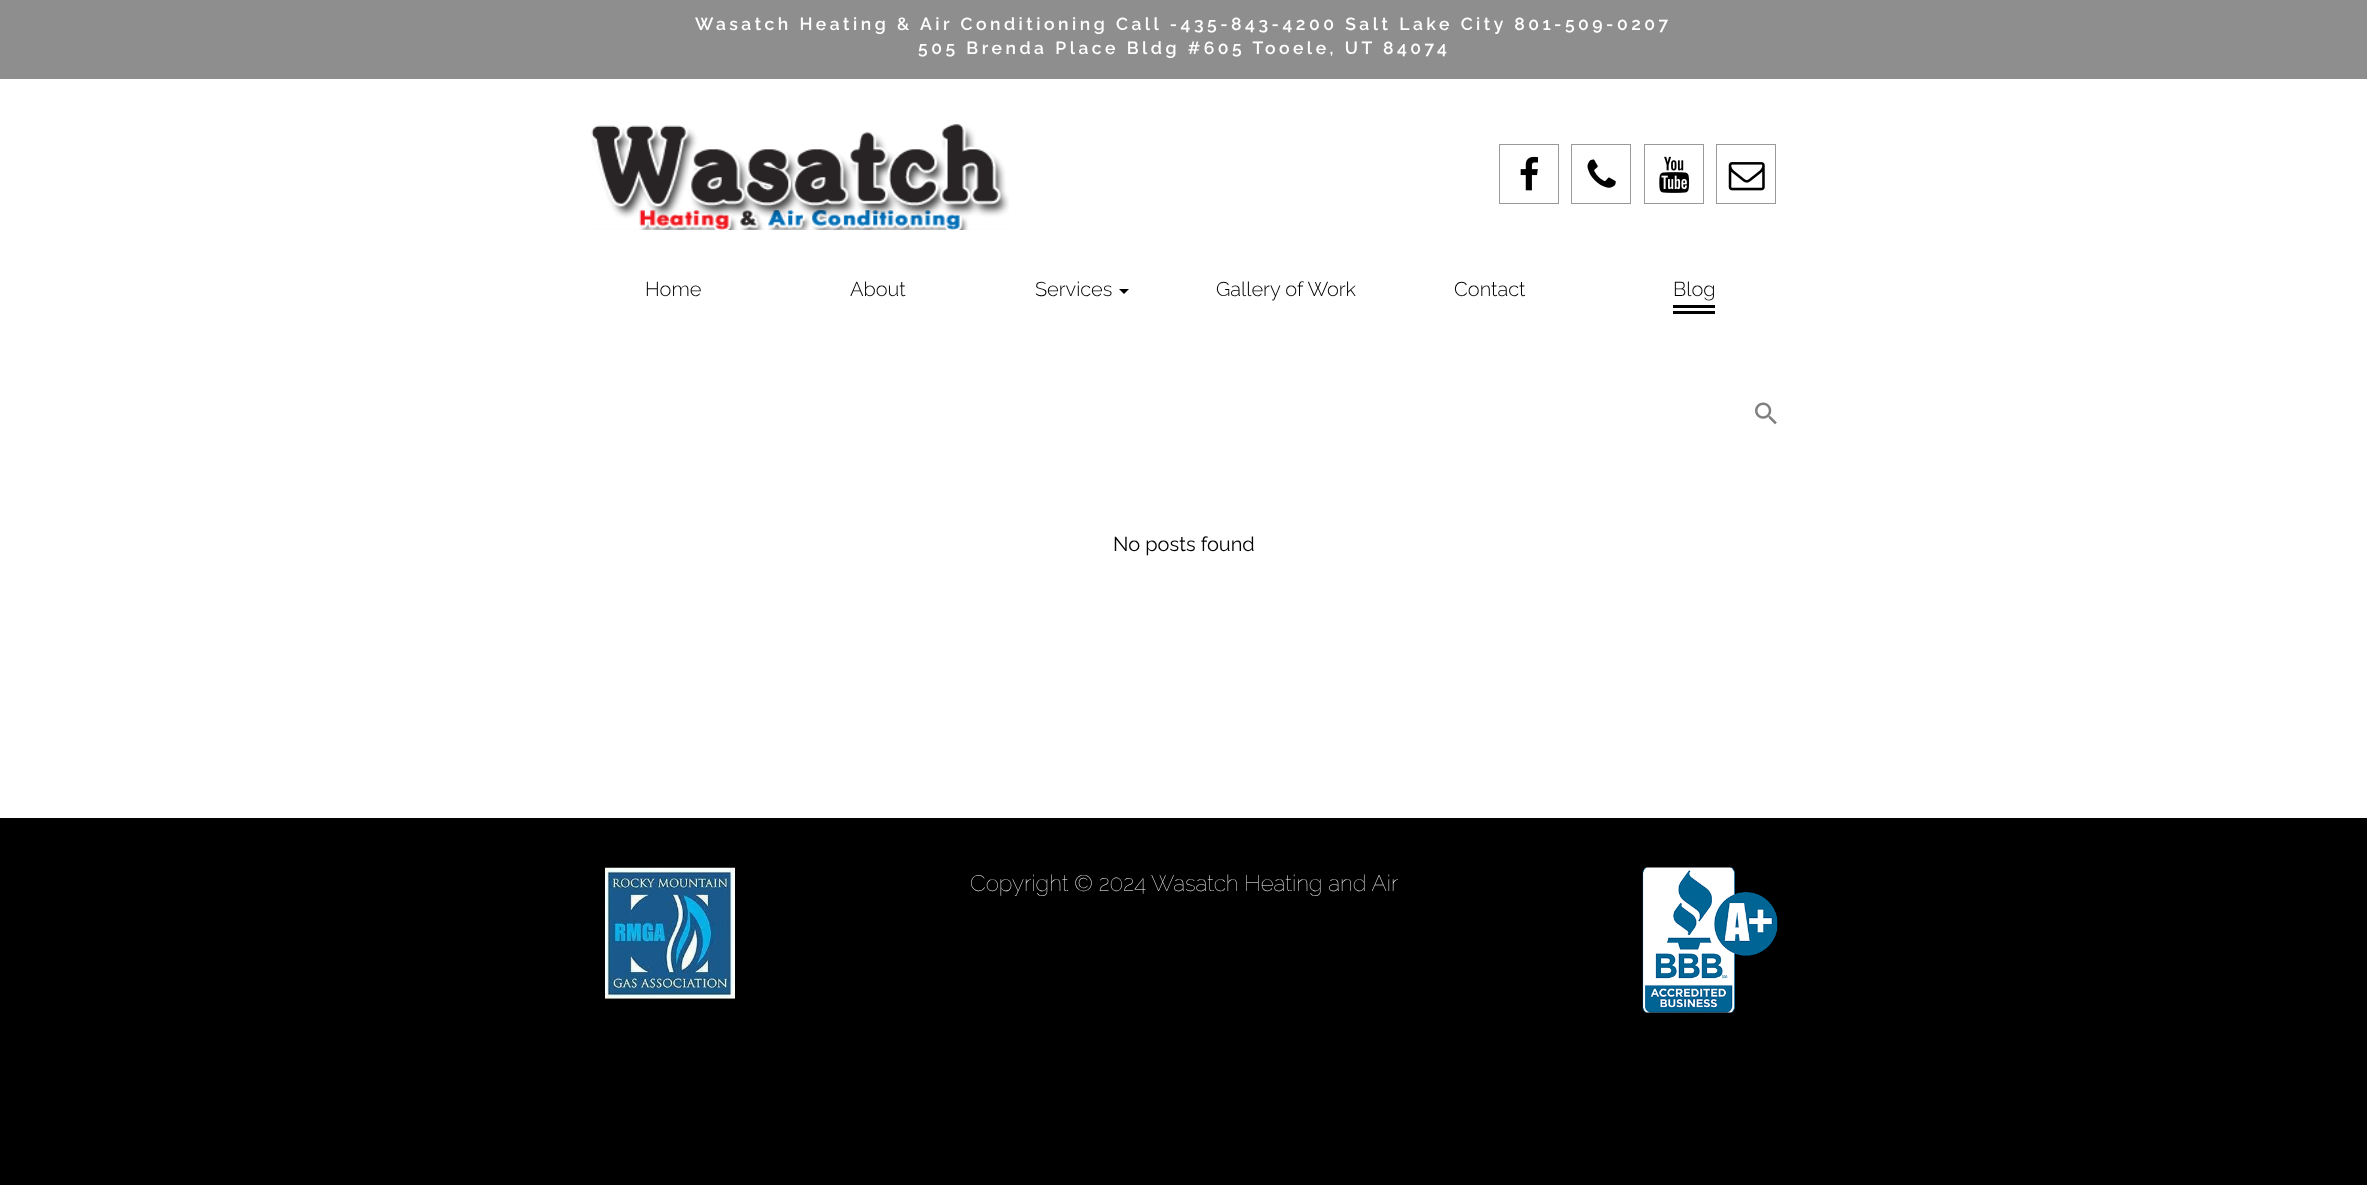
(async () => {
const canvas = document.querySelector("canvas")
canvas.width = 2367
canvas.height = 1185
const c = canvas.getContext("2d")
c.miterLimit = 4
c.fontKerning = "normal"
function T(s,x,y){c.fillText(s,x,y)}
function R(x,y,w,h){c.fillRect(x,y,w,h)}
async function I(src,x,y,w,h){const img=new Image();img.src=src;await img.decode();c.drawImage(img,x,y,w,h)}
let path
c.fillStyle="#fff"
R(0,0,2367,1185)
c.fillStyle="#8e8e8e"
R(0,0,2367,79)
c.letterSpacing="3.5px"
c.font="600 17.5px Raleway"
c.fillStyle="#fff"
T("Wasatch Heating & Air Conditioning Call -435-843-4200 Salt Lake City 801-509-0207",695,30)
T("505 Brenda Place Bldg #605 Tooele, UT 84074",918,54)
await I("1.png",591,124,418,106)
c.strokeStyle="#999"
c.strokeRect(1499.5,144.5,59,59)
await I("2.png",1520,156,18,35)
c.strokeRect(1571.5,144.5,59,59)
await I("3.png",1587,159,29,29)
c.strokeRect(1644.5,144.5,59,59)
await I("4.png",1659,156,31,37)
c.strokeRect(1716.5,144.5,59,59)
await I("5.png",1728,162,37,29)
c.letterSpacing="0px"
c.font="300 20px Raleway"
c.fillStyle="#000"
T("Home",645,296)
T("About",850,296)
T("Services",1035,296)
path = new Path2D("M1119 289h10l-5 5z")
c.fill(path)
T("Gallery of Work",1216,296)
T("Contact",1454,296)
T("Blog",1673,296)
R(1673,311,42,3)
R(1673,305,42,3)
await I("6.png",1755,402,22,23)
c.font="20px Raleway"
T("No posts found",1113,551)
R(0,818,2367,367)
await I("7.png",605,867,130,132)
c.font="100 22.5px Raleway"
c.fillStyle="#fff"
T("Copyright © 2024 Wasatch Heating and Air",970,891)
await I("8.png",1642,867,136,146)
})()
